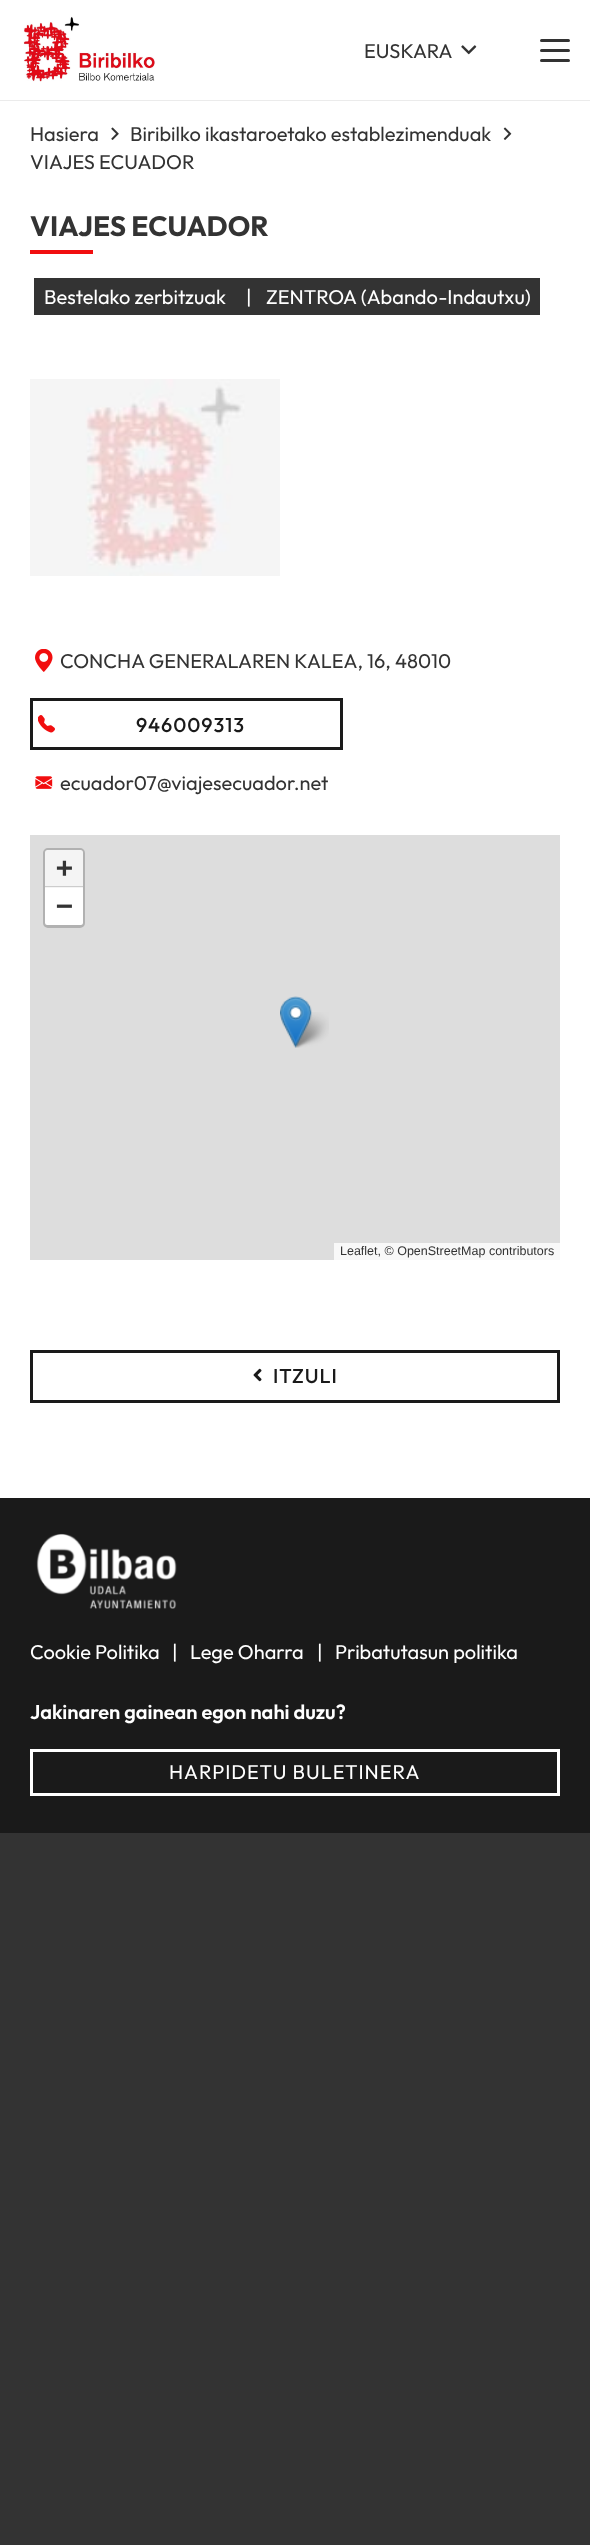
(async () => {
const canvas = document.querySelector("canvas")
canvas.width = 590
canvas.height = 2545
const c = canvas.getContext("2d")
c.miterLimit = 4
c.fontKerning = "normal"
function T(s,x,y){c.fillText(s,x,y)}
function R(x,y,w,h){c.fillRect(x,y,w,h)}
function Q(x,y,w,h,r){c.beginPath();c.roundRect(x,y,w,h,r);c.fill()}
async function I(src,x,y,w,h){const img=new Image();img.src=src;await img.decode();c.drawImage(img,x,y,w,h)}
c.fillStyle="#333"
R(0,0,590,2545)
c.fillStyle="#fff"
R(0,0,590,1498)
c.fillStyle="#ebebeb"
R(0,100,590,1)
await I("1.png",23,16,132,66)
c.font="20px Outfit"
c.fillStyle="#333"
T("EUSKARA",364,58)
await I("2.png",461,45,16,10)
Q(540,49,30,3,1.5)
Q(540,39,30,3,1.5)
Q(540,59,30,3,1.5)
T("Hasiera",30,141)
await I("3.png",111,127,8,13)
T("Biribilko ikastaroetako establezimenduak",130,141)
await I("4.png",503,127,9,13)
T("VIAJES ECUADOR",30,169)
c.font="bold 28px Outfit"
T("VIAJES ECUADOR",30,236)
c.fillStyle="#f10e0f"
R(30,250,63,4)
c.fillStyle="#333"
R(34,278,506,37)
c.font="20px Outfit"
c.fillStyle="#fff"
T("Bestelako zerbitzuak",44,304)
T("|",246,304)
T("ZENTROA (Abando-Indautxu)",266,304)
await I("5.png",30,379,250,197)
await I("6.png",35,649,18,23)
c.fillStyle="#333"
T("CONCHA GENERALAREN KALEA, 16, 48010",60,668)
await I("7.png",38,715,17,18)
c.strokeStyle="#1a1a1a"
c.lineWidth=3
c.strokeRect(31.5,699.5,310,49)
c.letterSpacing="1px"
c.font="500 20px Outfit"
c.fillStyle="#1a1a1a"
T("946009313",136,732)
await I("8.png",35,776,18,13)
c.letterSpacing="0px"
c.font="20px Outfit"
c.fillStyle="#333"
T("ecuador07@viajesecuador.net",60,790)
c.fillStyle="#ddd"
R(30,835,530,425)
c.beginPath()
c.roundRect(44.5,849.5,39,77,3.5)
c.strokeStyle="#b1b1b1"
c.stroke()
c.fillStyle="#f4f4f4"
c.beginPath()
c.roundRect(45,850,38,38,[2.5,2.5,0,0])
c.fill()
c.fillStyle="#ccc"
R(45,886,38,1)
c.font="bold 28px DejaVu Sans Mono"
c.fillStyle="#333"
T("+",56,877)
c.fillStyle="#fff"
c.beginPath()
c.roundRect(45,888,38,37,[0,0,2.5,2.5])
c.fill()
c.fillStyle="#333"
T("−",56,915)
c.fillStyle="#f8f8f8"
R(334,1243,226,17)
c.font="12.5px Liberation Sans"
c.fillStyle="#333"
T("Leaflet, © OpenStreetMap contributors",340,1255)
await I("10.png",291,1012,38,36)
await I("9.png",280,996,32,52)
c.strokeStyle="#1a1a1a"
c.strokeRect(31.5,1351.5,527,50)
await I("11.png",253,1368,9,14)
c.letterSpacing="1px"
c.font="500 20px Outfit"
c.fillStyle="#1a1a1a"
T("ITZULI",273,1383)
R(0,1498,590,335)
await I("12.png",36,1533,141,76)
c.letterSpacing="0px"
c.font="20px Outfit"
c.fillStyle="#fff"
T("Cookie Politika",30,1659)
T("|",172,1659)
T("Lege Oharra",190,1659)
T("|",317,1659)
T("Pribatutasun politika",335,1659)
c.font="600 20px Outfit"
T("Jakinaren gainean egon nahi duzu?",30,1719)
c.strokeStyle="#fff"
c.strokeRect(31.5,1750.5,527,44)
c.letterSpacing="1px"
c.font="20px Outfit"
T("HARPIDETU BULETINERA",169,1779)
})()
